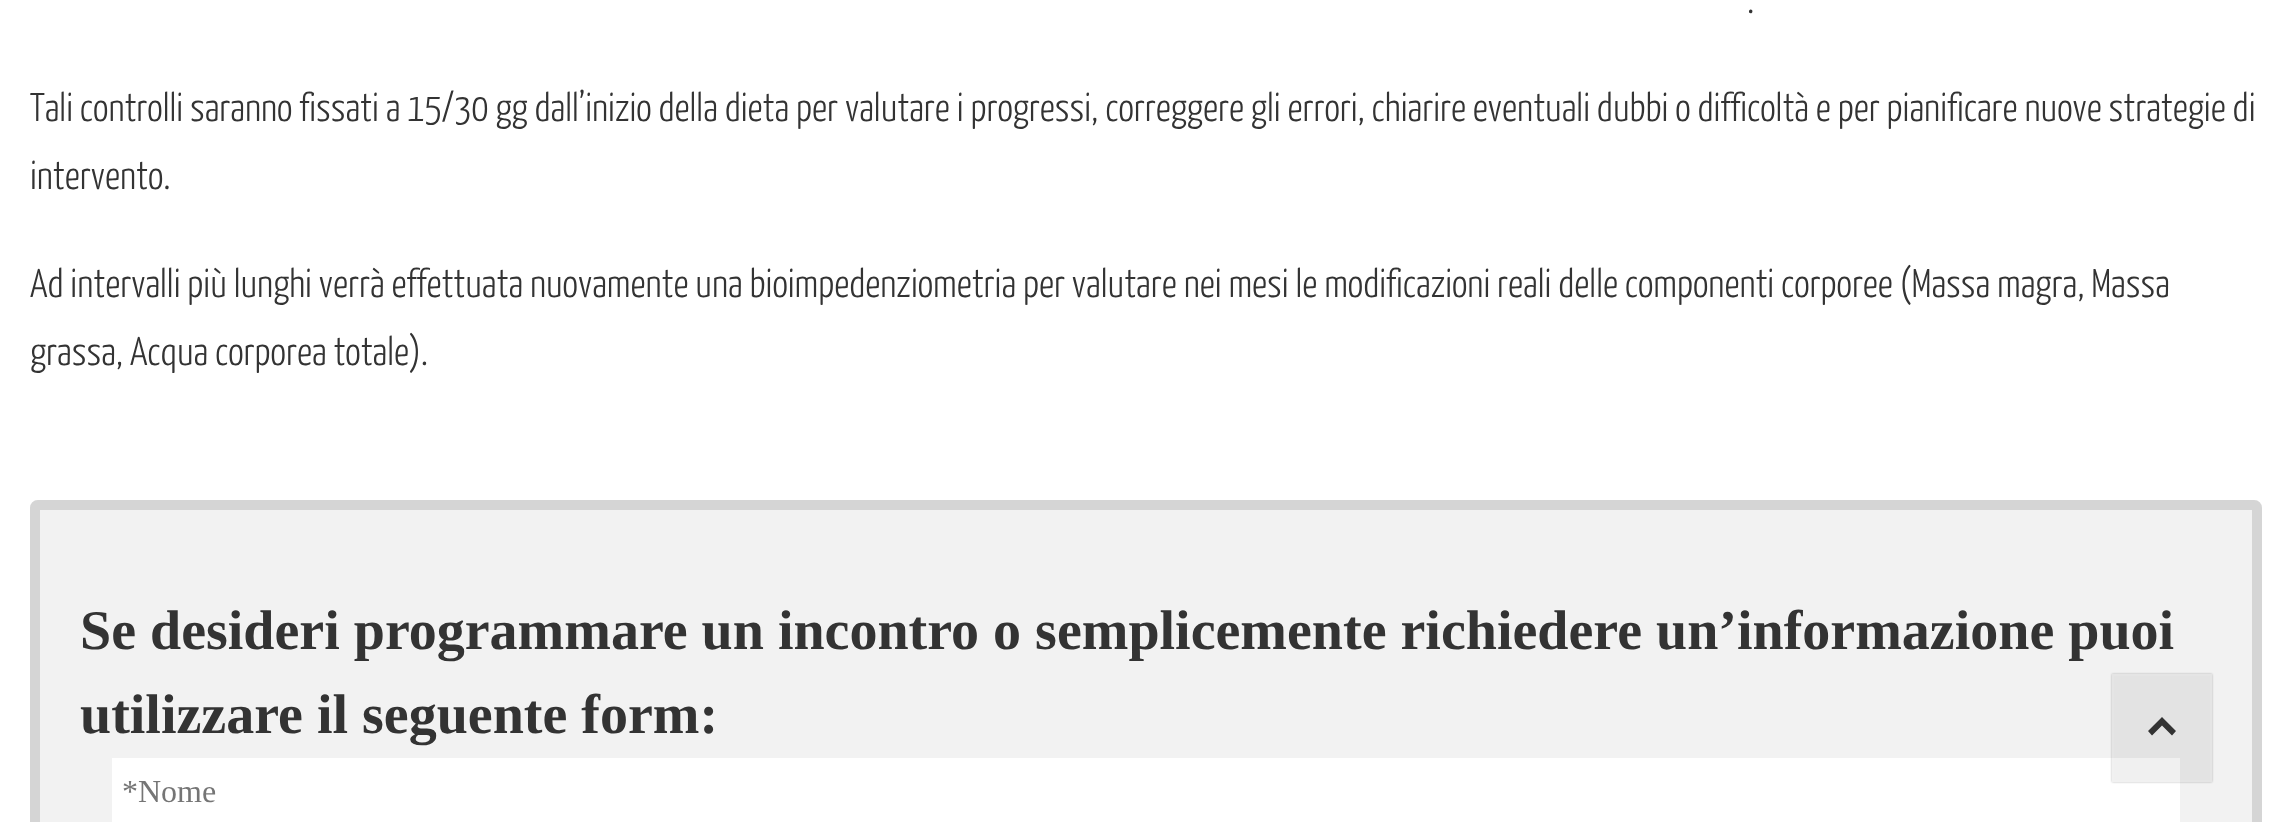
(async () => {
const canvas = document.querySelector("canvas")
canvas.width = 2292
canvas.height = 822
const c = canvas.getContext("2d")
c.miterLimit = 4
c.fontKerning = "normal"
function T(s,x,y){c.fillText(s,x,y)}
function R(x,y,w,h){c.fillRect(x,y,w,h)}
function Q(x,y,w,h,r){c.beginPath();c.roundRect(x,y,w,h,r);c.fill()}
let path
c.fillStyle="#fff"
R(0,0,2292,822)
c.font="300 40px Yanone Kaffeesatz"
c.fillStyle="#333"
T(".",1747,13)
T("Tali controlli saranno fissati a 15/30 gg dall’inizio della dieta per valutare i progressi, correggere gli errori, chiarire eventuali dubbi o difficoltà e per pianificare nuove strategie di",30,121)
T("intervento.",30,189)
T("Ad intervalli più lunghi verrà effettuata nuovamente una bioimpedenziometria per valutare nei mesi le modificazioni reali delle componenti corporee (Massa magra, Massa",30,297)
T("grassa, Acqua corporea totale).",30,365)
c.fillStyle="#f2f2f2"
Q(30,500,2232,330,8)
c.fillStyle="#e3e3e3"
R(2112,674,100,108)
c.beginPath()
c.roundRect(35,505,2222,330,3)
c.strokeStyle="#d5d5d5"
c.lineWidth=10
c.stroke()
c.font="bold 56px Liberation Serif"
c.fillStyle="#333"
T("Se desideri programmare un incontro o semplicemente richiedere un’informazione puoi",80,649)
T("utilizzare il seguente form:",80,733)
c.fillStyle="#fff"
R(112,758,2068,64)
c.fillStyle="#f0f0f0"
R(2112,758,68,24)
c.font="32px Liberation Serif"
c.fillStyle="#757575"
T("*Nome",122,802)
c.save()
path = new Path2D("M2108 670h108v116h-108zm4 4h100v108h-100z")
c.clip(path,"evenodd")
c.fillStyle="#00000047"
c.filter="blur(1px)"
c.beginPath()
c.rect(2112,674,100,108)
c.fill()
c.filter="none"
c.restore()
c.strokeStyle="#ffffff1a"
c.lineWidth=2
c.strokeRect(2113,675,98,106)
c.fillStyle="#333"
path = new Path2D("M2148 731l14-14l14 14l-4 4.5l-10-10l-10 10z")
c.fill(path)
})()
